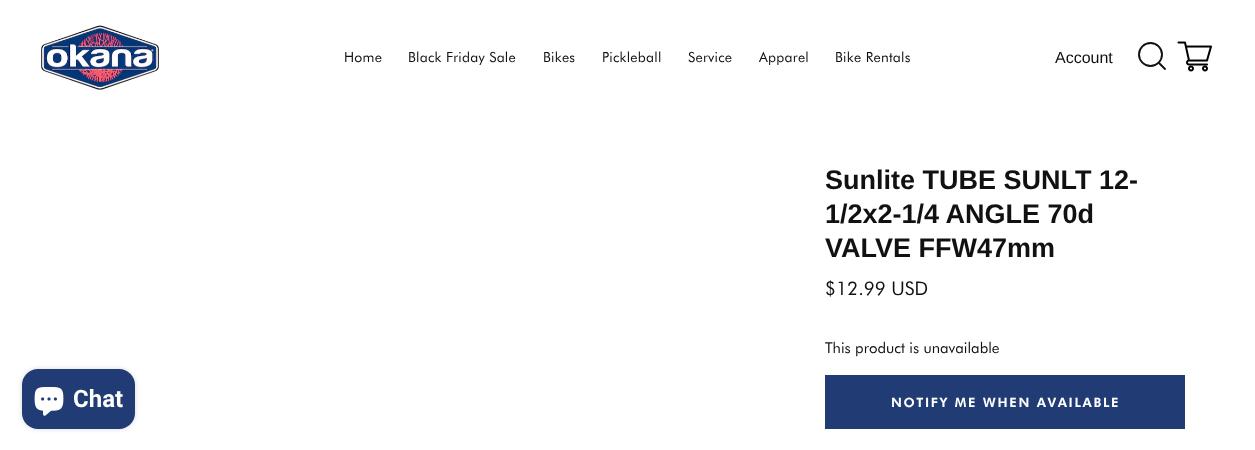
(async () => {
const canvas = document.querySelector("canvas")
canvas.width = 1255
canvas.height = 450
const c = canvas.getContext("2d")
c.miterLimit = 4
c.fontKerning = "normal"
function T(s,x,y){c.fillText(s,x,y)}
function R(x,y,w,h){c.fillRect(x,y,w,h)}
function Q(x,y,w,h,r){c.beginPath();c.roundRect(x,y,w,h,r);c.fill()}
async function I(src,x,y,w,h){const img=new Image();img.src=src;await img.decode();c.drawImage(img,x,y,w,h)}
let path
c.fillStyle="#fff"
R(0,0,1255,450)
await I("1.png",41,25,118,65)
c.letterSpacing="0.25px"
c.font="14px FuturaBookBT"
c.fillStyle="#111"
T("Home",344,62)
T("Black Friday Sale",408,62)
T("Bikes",543,62)
T("Pickleball",602,62)
T("Service",688,62)
T("Apparel",759,62)
T("Bike Rentals",835,62)
c.letterSpacing="0px"
c.font="16px Liberation Sans"
T("Account",1055,63)
c.beginPath()
c.arc(1150.5,54.5,11.5,0,7)
c.strokeStyle="#111"
c.lineWidth=1.9
c.stroke()
path = new Path2D("M1165 69l-6-6")
c.lineCap="round"
c.lineJoin="round"
c.stroke(path)
await I("2.png",1177,41,35,31)
c.fillStyle="#00000026"
c.filter="blur(2.5px)"
c.beginPath()
c.roundRect(22,369,113,60,16)
c.fill()
c.filter="none"
c.fillStyle="#213b74"
Q(22,369,113,60,16)
await I("3.png",34,387,30,29)
c.font="bold 24px Roboto"
c.fillStyle="#fff"
T("Chat",73,407)
c.font="bold 27px Liberation Sans"
c.fillStyle="#111"
T("Sunlite TUBE SUNLT 12-",825,189)
T("1/2x2-1/4 ANGLE 70d",825,223)
T("VALVE FFW47mm",825,257)
c.font="18.75px FuturaBookBT"
T("$12.99 USD",825,295)
c.font="15px FuturaBookBT"
T("This product is unavailable",825,353)
c.fillStyle="#213b74"
R(825,375,360,54)
c.letterSpacing="1.7px"
c.font="900 13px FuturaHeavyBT"
c.fillStyle="#fff"
T("NOTIFY ME WHEN AVAILABLE",891,407)
})()
